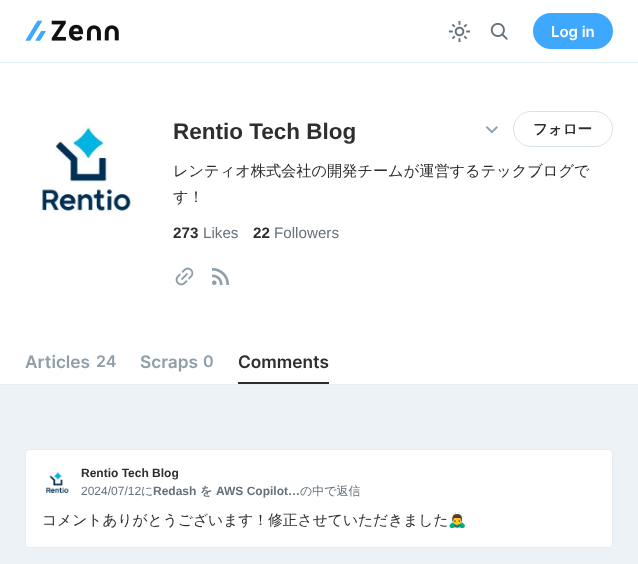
(async () => {
const canvas = document.querySelector("canvas")
canvas.width = 638
canvas.height = 564
const c = canvas.getContext("2d")
c.miterLimit = 4
c.fontKerning = "normal"
function T(s,x,y){c.fillText(s,x,y)}
function R(x,y,w,h){c.fillRect(x,y,w,h)}
function Q(x,y,w,h,r){c.beginPath();c.roundRect(x,y,w,h,r);c.fill()}
async function I(src,x,y,w,h){const img=new Image();img.src=src;await img.decode();c.drawImage(img,x,y,w,h)}
c.fillStyle="#fff"
R(0,0,638,564)
await I("1.png",25,20,94,21)
await I("2.png",448,20,23,23)
await I("3.png",490,22,18,18)
c.fillStyle="#3ea8ff"
Q(533,13,80,36,18)
c.font="600 15px Inter"
c.fillStyle="#fff"
T("Log in",551,37)
c.fillStyle="#e4edf4"
R(0,62,638,1)
await I("4.png",40,126,95,88)
c.font="bold 22.5px Liberation Sans"
c.fillStyle="#2e2e2e"
T("Rentio Tech Blog",173,139)
await I("5.png",486,126,12,8)
c.beginPath()
c.roundRect(513.5,111.5,99,35,17.5)
c.strokeStyle="#d6e3ed"
c.stroke()
c.font="bold 14.5px WenQuanYi Zen Hei"
T("フォロー",533,134)
c.font="500 15.2px WenQuanYi Zen Hei"
T("レンティオ株式会社の開発チームが運営するテックブログで",173,176)
T("す！",173,202)
c.font="bold 15.2px Liberation Sans"
T("273",173,238)
c.font="15.2px Liberation Sans"
c.fillStyle="#65717b"
T("Likes",203,238)
c.font="bold 15.2px Liberation Sans"
c.fillStyle="#2e2e2e"
T("22",253,238)
c.font="15.2px Liberation Sans"
c.fillStyle="#65717b"
T("Followers",274,238)
await I("6.png",175,267,19,19)
await I("7.png",212,268,17,17)
c.font="600 17.25px Inter"
c.fillStyle="#8f9faa"
T("Articles",25,368)
c.font="600 16px Inter"
T("24",96,367)
c.font="600 17.25px Inter"
T("Scraps",140,368)
c.font="600 16px Inter"
T("0",203,367)
c.font="600 17.25px Inter"
c.fillStyle="#2e2e2e"
T("Comments",238,368)
R(238,382,91,2)
c.fillStyle="#edf2f7"
R(0,385,638,179)
c.fillStyle="#e4edf4"
R(0,384,638,1)
c.fillStyle="#fff"
c.beginPath()
c.roundRect(25.5,449.5,587,98,3.5)
c.fill()
c.strokeStyle="#e4edf4"
c.stroke()
await I("8.png",46,472,23,21)
c.font="bold 12px Liberation Sans"
c.fillStyle="#2e2e2e"
T("Rentio Tech Blog",81,477)
c.font="12px Liberation Sans"
c.fillStyle="#65717b"
T("2024/07/12",81,495)
c.font="500 12px WenQuanYi Zen Hei"
T("に",141,495)
c.font="bold 12px Liberation Sans"
T("Redash",153,495)
c.font="bold 12px WenQuanYi Zen Hei"
T("を",200,495)
c.font="bold 12px Liberation Sans"
T("AWS Copilot…",216,495)
c.font="500 12px WenQuanYi Zen Hei"
T("の中で返信",300,495)
c.font="500 14.75px WenQuanYi Zen Hei"
c.fillStyle="#2e2e2e"
T("コメントありがとうございます！修正させていただきました",42,525)
c.font="14.75px Noto Color Emoji"
T("🙇‍♂️",448,525)
})()
